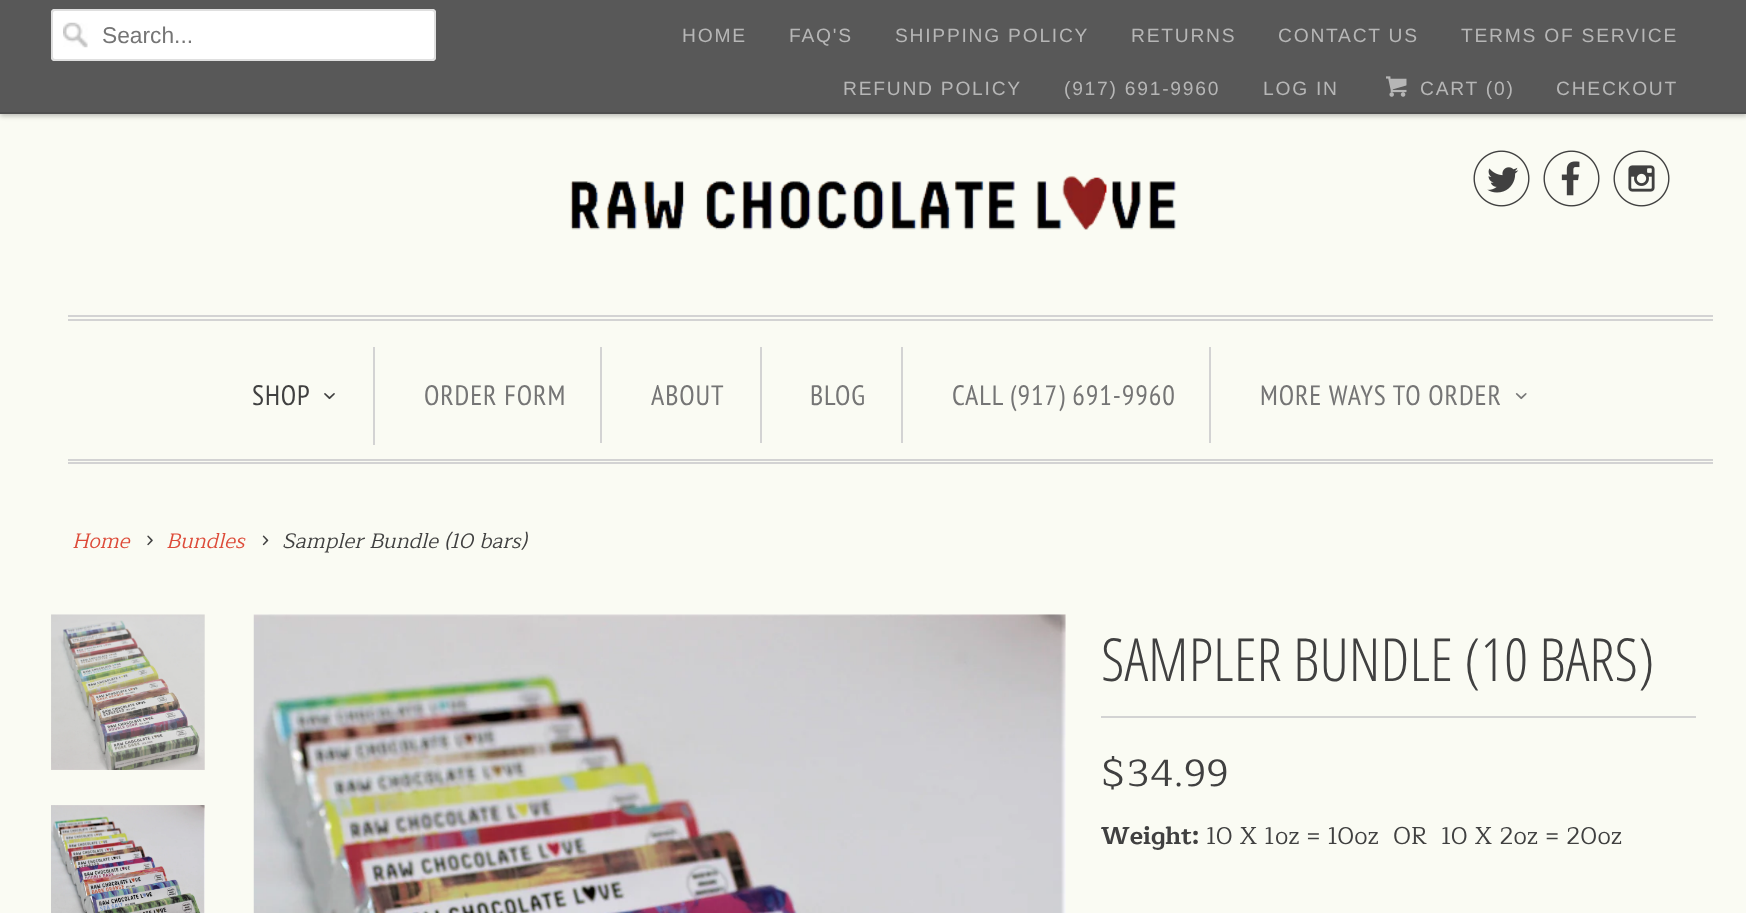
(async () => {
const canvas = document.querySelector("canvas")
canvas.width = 1746
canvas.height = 913
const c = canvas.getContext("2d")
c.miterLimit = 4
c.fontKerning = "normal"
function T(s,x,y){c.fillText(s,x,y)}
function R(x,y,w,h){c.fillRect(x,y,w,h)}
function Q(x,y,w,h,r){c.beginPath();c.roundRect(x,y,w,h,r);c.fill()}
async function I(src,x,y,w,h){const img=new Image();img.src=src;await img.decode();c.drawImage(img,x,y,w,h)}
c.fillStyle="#fafbf3"
R(0,0,1746,913)
c.fillStyle="#00000040"
c.filter="blur(2.5px)"
c.beginPath()
c.rect(0,2,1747,114)
c.fill()
c.filter="none"
c.fillStyle="#585858"
R(0,0,1746,112)
c.fillStyle="#4f4f4f"
R(0,112,1746,2)
c.fillStyle="#fff"
Q(51,9,385,52,4)
await I("1.png",63,22,25,26)
c.beginPath()
c.roundRect(52,10,383,50,3)
c.strokeStyle="#dfdfdf"
c.lineWidth=2
c.stroke()
c.font="22.75px Liberation Sans"
c.fillStyle="#757575"
T("Search...",102,43)
c.letterSpacing="1.75px"
c.font="19.25px Liberation Sans"
c.fillStyle="#b6b6b6"
T("HOME",682,42)
T("FAQ'S",789,42)
T("SHIPPING POLICY",895,42)
T("RETURNS",1131,42)
T("CONTACT US",1278,42)
T("TERMS OF SERVICE",1461,42)
T("REFUND POLICY",843,95)
T("(917) 691-9960",1064,95)
T("LOG IN",1263,95)
await I("2.png",1386,76,21,21)
T("CART (0)",1420,95)
T("CHECKOUT",1556,95)
await I("3.png",570,175,606,55)
await I("4.png",1473,150,57,57)
await I("5.png",1543,150,57,57)
await I("6.png",1613,150,57,57)
c.fillStyle="#d3d3d3"
R(68,315,1645,2)
R(68,319,1645,2)
R(68,459,1645,2)
R(68,462,1645,2)
R(373,347,2,98)
c.letterSpacing="0.9px"
c.font="28px PT Sans Narrow"
c.fillStyle="#404040"
T("SHOP",252,405)
await I("7.png",324,393,11,7)
c.fillStyle="#d3d3d3"
R(600,347,2,96)
c.fillStyle="#757575"
T("ORDER FORM",424,405)
c.fillStyle="#d3d3d3"
R(760,347,2,96)
c.fillStyle="#757575"
T("ABOUT",651,405)
c.fillStyle="#d3d3d3"
R(901,347,2,96)
c.fillStyle="#757575"
T("BLOG",810,405)
c.fillStyle="#d3d3d3"
R(1209,347,2,96)
c.fillStyle="#757575"
T("CALL (917) 691-9960",952,405)
T("MORE WAYS TO ORDER",1260,405)
await I("8.png",1515,393,12,7)
c.letterSpacing="0px"
c.font="italic 21px Maitree"
c.fillStyle="#dd4b39"
T("Home",72,548)
await I("9.png",147,535,6,11)
T("Bundles",166,548)
await I("10.png",262,535,7,11)
c.fillStyle="#404040"
T("Sampler Bundle (10 bars)",282,548)
await I("11.png",51,614,154,156)
await I("12.png",51,805,154,108)
await I("13.png",253,614,813,299)
c.fillStyle="#d3d3d3"
R(1101,716,595,2)
c.font="300 59.5px Open Sans Condensed"
c.fillStyle="#404040"
T("SAMPLER BUNDLE (10 BARS)",1101,681)
c.font="38.5px Maitree"
T("$34.99",1101,786)
c.font="bold 24.5px Maitree"
T("Weight:",1101,844)
c.font="24.5px Maitree"
T("10 X 1oz = 10oz  OR",1206,844)
T("10 X 2oz = 20oz",1441,844)
})()
